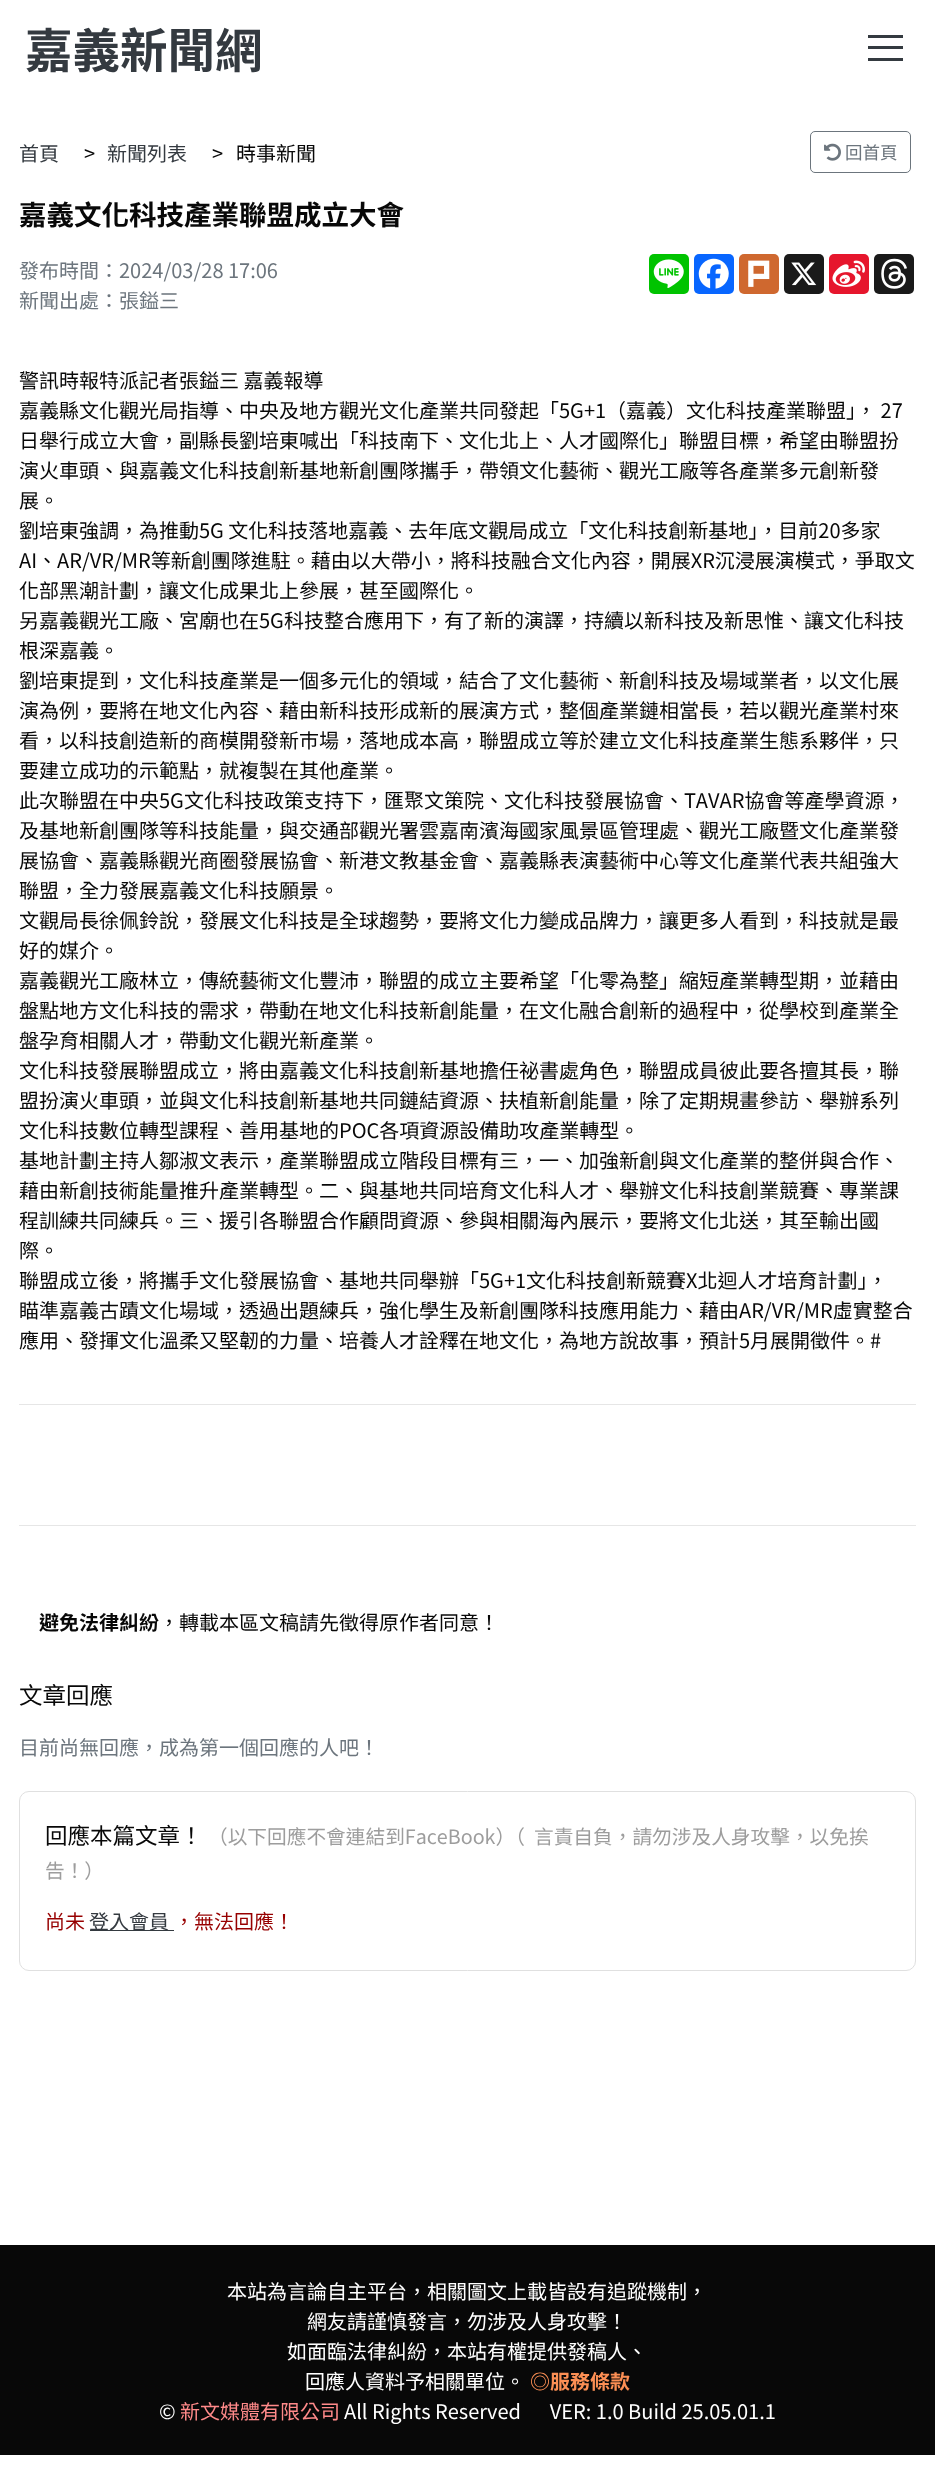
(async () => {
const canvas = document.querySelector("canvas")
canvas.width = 935
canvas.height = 2474
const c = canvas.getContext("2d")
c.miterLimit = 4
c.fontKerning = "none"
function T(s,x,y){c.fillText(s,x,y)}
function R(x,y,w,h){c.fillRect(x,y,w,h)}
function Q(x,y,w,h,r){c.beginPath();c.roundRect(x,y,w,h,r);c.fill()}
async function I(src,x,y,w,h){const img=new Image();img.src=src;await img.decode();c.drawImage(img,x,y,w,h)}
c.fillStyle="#fff"
R(0,0,935,2474)
c.font="bold 47.5px Noto Sans TC"
c.fillStyle="#343a40"
T("嘉義新聞網",25,68)
R(868,46,35,3)
R(868,35,35,3)
R(868,58,35,3)
c.font="20px Noto Sans TC"
T("首頁",19,161)
c.fillStyle="#080808"
T(">",84,161)
c.fillStyle="#343a40"
T("新聞列表",107,161)
c.fillStyle="#080808"
T(">",212,161)
T("時事新聞",236,161)
c.beginPath()
c.roundRect(810.5,131.5,100,41,4.5)
c.strokeStyle="#6c757d"
c.stroke()
await I("1.png",824,143,17,18)
c.font="17.5px Noto Sans TC"
c.fillStyle="#6c757d"
T("回首頁",845,159)
c.font="bold 27.5px Noto Sans TC"
c.fillStyle="#080808"
T("嘉義文化科技產業聯盟成立大會",19,225)
c.font="20px Noto Sans TC"
c.fillStyle="#6c757d"
T("發布時間：2024/03/28 17:06",19,278)
T("新聞出處：張鎰三",19,308)
c.fillStyle="#00c300"
Q(649,254,40,40,5)
await I("2.png",653,259,31,29)
c.fillStyle="#0866ff"
Q(694,254,40,40,5)
await I("3.png",698,258,31,31)
c.fillStyle="#cf682f"
Q(739,254,40,40,5)
await I("4.png",748,260,22,27)
c.fillStyle="#1a1a1a"
Q(784,254,40,40,5)
await I("5.png",791,262,26,24)
c.fillStyle="#e6162d"
Q(829,254,40,40,5)
await I("6.png",832,260,33,27)
c.fillStyle="#1a1a1a"
Q(874,254,40,40,5)
await I("7.png",881,258,26,31)
c.fillStyle="#080808"
T("警訊時報特派記者張鎰三 嘉義報導",19,388)
T("嘉義縣文化觀光局指導、中央及地方觀光文化產業共同發起「5G+1（嘉義）文化科技產業聯盟」， 27",19,418)
T("日舉行成立大會，副縣長劉培東喊出「科技南下、文化北上、人才國際化」聯盟目標，希望由聯盟扮",19,448)
T("演火車頭、與嘉義文化科技創新基地新創團隊攜手，帶領文化藝術、觀光工廠等各產業多元創新發",19,478)
T("展。",19,508)
T("劉培東強調，為推動5G 文化科技落地嘉義、去年底文觀局成立「文化科技創新基地」，目前20多家",19,538)
T("AI、AR/VR/MR等新創團隊進駐。藉由以大帶小，將科技融合文化內容，開展XR沉浸展演模式，爭取文",19,568)
T("化部黑潮計劃，讓文化成果北上參展，甚至國際化。",19,598)
T("另嘉義觀光工廠、宮廟也在5G科技整合應用下，有了新的演譯，持續以新科技及新思惟、讓文化科技",19,628)
T("根深嘉義。",19,658)
T("劉培東提到，文化科技產業是一個多元化的領域，結合了文化藝術、新創科技及場域業者，以文化展",19,688)
T("演為例，要將在地文化內容、藉由新科技形成新的展演方式，整個產業鏈相當長，若以觀光產業村來",19,718)
T("看，以科技創造新的商模開發新巿場，落地成本高，聯盟成立等於建立文化科技產業生態系夥伴，只",19,748)
T("要建立成功的示範點，就複製在其他產業。",19,778)
T("此次聯盟在中央5G文化科技政策支持下，匯聚文策院、文化科技發展協會、TAVAR協會等產學資源，",19,808)
T("及基地新創團隊等科技能量，與交通部觀光署雲嘉南濱海國家風景區管理處、觀光工廠暨文化產業發",19,838)
T("展協會、嘉義縣觀光商圈發展協會、新港文教基金會、嘉義縣表演藝術中心等文化產業代表共組強大",19,868)
T("聯盟，全力發展嘉義文化科技願景。",19,898)
T("文觀局長徐佩鈴說，發展文化科技是全球趨勢，要將文化力變成品牌力，讓更多人看到，科技就是最",19,928)
T("好的媒介。",19,958)
T("嘉義觀光工廠林立，傳統藝術文化豐沛，聯盟的成立主要希望「化零為整」縮短產業轉型期，並藉由",19,988)
T("盤點地方文化科技的需求，帶動在地文化科技新創能量，在文化融合創新的過程中，從學校到產業全",19,1018)
T("盤孕育相關人才，帶動文化觀光新產業。",19,1048)
T("文化科技發展聯盟成立，將由嘉義文化科技創新基地擔任祕書處角色，聯盟成員彼此要各擅其長，聯",19,1078)
T("盟扮演火車頭，並與文化科技創新基地共同鏈結資源、扶植新創能量，除了定期規畫參訪、舉辦系列",19,1108)
T("文化科技數位轉型課程、善用基地的POC各項資源設備助攻產業轉型。",19,1138)
T("基地計劃主持人鄒淑文表示，產業聯盟成立階段目標有三，一、加強新創與文化產業的整併與合作、",19,1168)
T("藉由新創技術能量推升產業轉型。二、與基地共同培育文化科人才、舉辦文化科技創業競賽、專業課",19,1198)
T("程訓練共同練兵。三、援引各聯盟合作顧問資源、參與相關海內展示，要將文化北送，其至輸出國",19,1228)
T("際。",19,1258)
T("聯盟成立後，將攜手文化發展協會、基地共同舉辦「5G+1文化科技創新競賽X北迴人才培育計劃」，",19,1288)
T("瞄準嘉義古蹟文化場域，透過出題練兵，強化學生及新創團隊科技應用能力、藉由AR/VR/MR虛實整合",19,1318)
T("應用、發揮文化溫柔又堅韌的力量、培養人才詮釋在地文化，為地方說故事，預計5月展開徵件。#",19,1348)
c.fillStyle="#e6e6e6"
R(19,1404,897,1)
R(19,1525,897,1)
c.font="bold 20px Noto Sans TC"
c.fillStyle="#080808"
T("避免法律糾紛",39,1630)
c.font="20px Noto Sans TC"
T("，轉載本區文稿請先徵得原作者同意！",159,1630)
c.font="23.5px Noto Sans TC"
T("文章回應",19,1704)
c.font="20px Noto Sans TC"
c.fillStyle="#6c757d"
T("目前尚無回應，成為第一個回應的人吧！",19,1755)
c.beginPath()
c.roundRect(19.5,1791.5,896,179,9.5)
c.strokeStyle="#e0e0e0"
c.stroke()
c.font="22.5px Noto Sans TC"
c.fillStyle="#080808"
T("回應本篇文章！",45,1844)
c.font="19.7px Noto Sans TC"
c.fillStyle="#9d9d9d"
T("（以下回應不會連結到FaceBook）（",208,1844)
T("言責自負，請勿涉及人身攻擊，以免挨",534,1844)
T("告！）",45,1878)
c.font="20px Noto Sans TC"
c.fillStyle="#970000"
T("尚未",45,1929)
c.fillStyle="#343a40"
R(90,1930,84,1)
T("登入會員",89,1929)
c.fillStyle="#970000"
T("，無法回應！",174,1929)
c.fillStyle="#080808"
R(0,2245,935,210)
c.fillStyle="#fff"
T("本站為言論自主平台，相關圖文上載皆設有追蹤機制，",227,2299)
T("網友請謹慎發言，勿涉及人身攻擊！",307,2329)
T("如面臨法律糾紛，本站有權提供發稿人、",287,2359)
T("回應人資料予相關單位。",305,2389)
c.font="bold 20px Noto Sans TC"
c.fillStyle="#fc8f54"
T("◎服務條款",530,2389)
c.font="20px Noto Sans TC"
c.fillStyle="#fff"
T("©",159,2419)
c.fillStyle="#ff8a8a"
T("新文媒體有限公司",180,2419)
c.fillStyle="#fff"
T("All Rights Reserved   VER: 1.0 Build 25.05.01.1",344,2419)
})()
